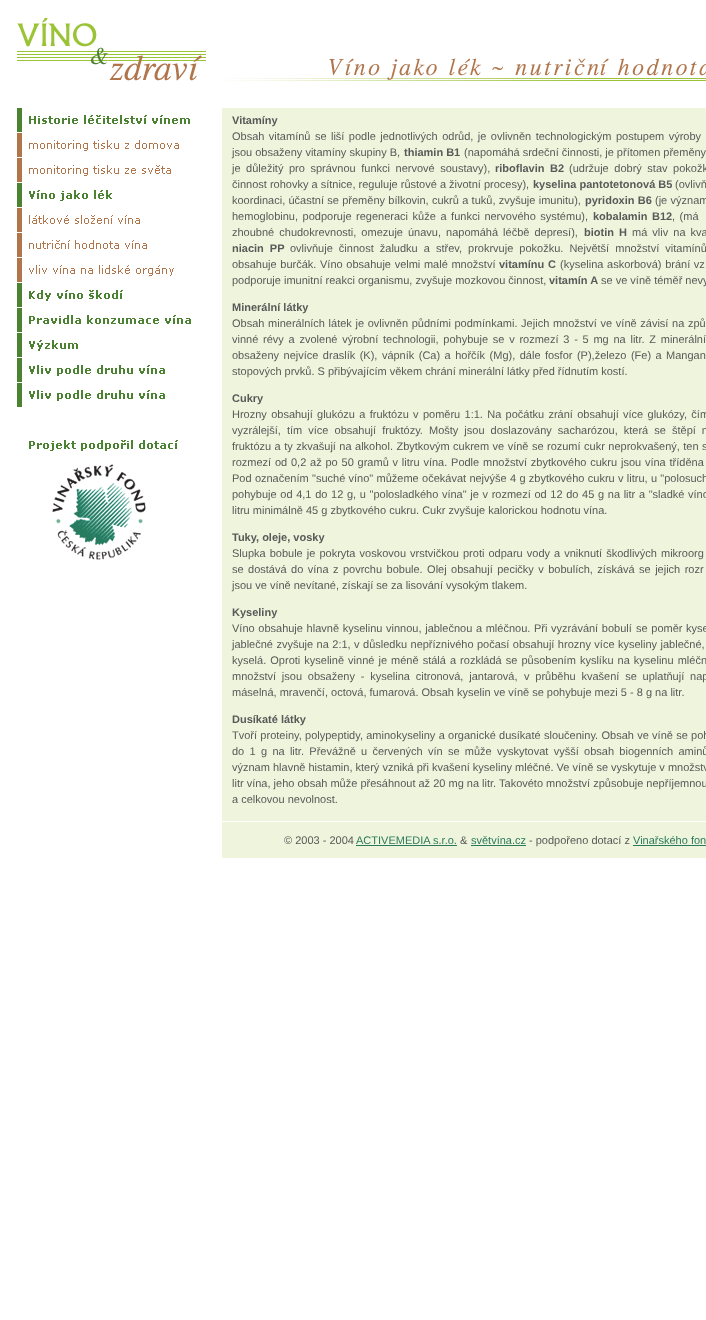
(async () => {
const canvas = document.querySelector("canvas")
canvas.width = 706
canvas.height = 1320
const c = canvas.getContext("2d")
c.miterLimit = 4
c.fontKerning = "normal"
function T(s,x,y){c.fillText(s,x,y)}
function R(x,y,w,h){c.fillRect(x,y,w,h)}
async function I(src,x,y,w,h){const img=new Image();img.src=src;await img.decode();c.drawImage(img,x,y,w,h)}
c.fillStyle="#fff"
R(0,0,706,1320)
await I("1.png",17,18,189,63)
await I("2.png",222,58,484,23)
await I("3.png",17,108,173,24)
await I("4.png",17,133,162,24)
await I("5.png",17,158,154,24)
await I("6.png",17,183,95,24)
await I("7.png",17,208,123,24)
await I("8.png",17,233,130,24)
await I("9.png",17,258,157,24)
await I("10.png",17,283,106,24)
await I("11.png",17,308,174,24)
await I("12.png",17,333,61,24)
await I("13.png",17,358,148,24)
await I("13.png",17,383,148,24)
await I("14.png",29,440,149,120)
c.fillStyle="#eef5dc"
R(222,108,484,713)
c.font="bold 11px Liberation Sans"
c.fillStyle="#595959"
T("Vitamíny",232,124)
c.wordSpacing="1.4px"
c.font="11px Liberation Sans"
T("Obsah vitamínů se liší podle jednotlivých odrůd, je ovlivněn technologickým postupem výroby",232,140)
c.wordSpacing="0px"
T("jsou obsaženy vitamíny skupiny B,",232,156)
c.font="bold 11px Liberation Sans"
T("thiamin B1",404,156)
c.font="11px Liberation Sans"
T("(napomáhá srdeční činnosti, je přítomen přeměny",464,156)
c.wordSpacing="2.5px"
T("je důležitý pro správnou funkci nervové soustavy),",232,172)
c.font="bold 11px Liberation Sans"
T("riboflavin B2",495,172)
c.font="11px Liberation Sans"
T("(udržuje dobrý stav pokožk",569,172)
c.wordSpacing="0px"
T("činnost rohovky a sítnice, reguluje růstové a životní procesy),",232,188)
c.font="bold 11px Liberation Sans"
T("kyselina pantotetonová B5",533,188)
c.font="11px Liberation Sans"
T("(ovlivň",675,188)
c.wordSpacing="0.25px"
T("koordinaci, účastní se přeměny bílkovin, cukrů a tuků, zvyšuje imunitu),",232,204)
c.font="bold 11px Liberation Sans"
T("pyridoxin B6",585,204)
c.font="11px Liberation Sans"
T("(je význam",655,204)
c.wordSpacing="1.5px"
T("hemoglobinu, podporuje regeneraci kůže a funkci nervového systému),",232,220)
c.font="bold 11px Liberation Sans"
T("kobalamin B12",593,220)
c.font="11px Liberation Sans"
T(", (má",672,220)
c.wordSpacing="2px"
T("zhoubné chudokrevnosti, omezuje únavu, napomáhá léčbě depresí),",232,236)
c.font="bold 11px Liberation Sans"
T("biotin H",584,236)
c.font="11px Liberation Sans"
T("má vliv na kva",632,236)
c.wordSpacing="3px"
c.font="bold 11px Liberation Sans"
T("niacin PP",232,252)
c.font="11px Liberation Sans"
T("ovlivňuje činnost žaludku a střev, prokrvuje pokožku. Největší množství vitamínů",290,252)
c.wordSpacing="0.6px"
T("obsahuje burčák. Víno obsahuje velmi malé množství",232,268)
c.font="bold 11px Liberation Sans"
T("vitamínu C",499,268)
c.font="11px Liberation Sans"
T("(kyselina askorbová) brání vz",560,268)
c.wordSpacing="0px"
T("podporuje imunitní reakci organismu, zvyšuje mozkovou činnost,",232,284)
c.font="bold 11px Liberation Sans"
T("vitamín A",549,284)
c.font="11px Liberation Sans"
T("se ve víně téměř nevy",601,284)
c.font="bold 11px Liberation Sans"
T("Minerální látky",232,311)
c.wordSpacing="0.6px"
c.font="11px Liberation Sans"
T("Obsah minerálních látek je ovlivněn půdními podmínkami. Jejich množství ve víně závisí na způ",232,327)
c.wordSpacing="1.7px"
T("vinné révy a zvolené výrobní technologii, pohybuje se v rozmezí 3 - 5 mg na litr. Z minerální",232,343)
c.wordSpacing="1.4px"
T("obsaženy nejvíce draslík (K), vápník (Ca) a hořčík (Mg), dále fosfor (P),železo (Fe) a Mangan",232,359)
c.wordSpacing="0px"
T("stopových prvků. S přibývajícím věkem chrání minerální látky před řídnutím kostí.",232,375)
c.font="bold 11px Liberation Sans"
T("Cukry",232,402)
c.wordSpacing="1.25px"
c.font="11px Liberation Sans"
T("Hrozny obsahují glukózu a fruktózu v poměru 1:1. Na počátku zrání obsahují více glukózy, čím",232,418)
c.wordSpacing="3px"
T("vyzrálejší, tím více obsahují fruktózy. Mošty jsou doslazovány sacharózou, která se štěpí n",232,434)
c.wordSpacing="0.4px"
T("fruktózu a ty zkvašují na alkohol. Zbytkovým cukrem ve víně se rozumí cukr neprokvašený, ten s",232,450)
c.wordSpacing="0.75px"
T("rozmezí od 0,2 až po 50 gramů v litru vína. Podle množství zbytkového cukru jsou vína tříděna",232,466)
c.wordSpacing="0.25px"
T("Pod označením \"suché víno\" můžeme očekávat nejvýše 4 g zbytkového cukru v litru, u \"polosuch",232,482)
c.wordSpacing="0.6px"
T("pohybuje od 4,1 do 12 g, u \"polosladkého vína\" je v rozmezí od 12 do 45 g na litr a \"sladké víno",232,498)
c.wordSpacing="0px"
T("litru minimálně 45 g zbytkového cukru. Cukr zvyšuje kalorickou hodnotu vína.",232,514)
c.font="bold 11px Liberation Sans"
T("Tuky, oleje, vosky",232,541)
c.wordSpacing="1px"
c.font="11px Liberation Sans"
T("Slupka bobule je pokryta voskovou vrstvičkou proti odparu vody a vniknutí škodlivých mikroorg",232,557)
c.wordSpacing="1.4px"
T("se dostává do vína z povrchu bobule. Olej obsahují pecičky v bobulích, získává se jejich rozr",232,573)
c.wordSpacing="0px"
T("jsou ve víně nevítané, získají se za lisování vysokým tlakem.",232,589)
c.font="bold 11px Liberation Sans"
T("Kyseliny",232,616)
c.wordSpacing="0.6px"
c.font="11px Liberation Sans"
T("Víno obsahuje hlavně kyselinu vinnou, jablečnou a mléčnou. Při vyzrávání bobulí",232,632)
T("se poměr kyse",636,632)
c.wordSpacing="0.4px"
T("jablečné zvyšuje na 2:1, v důsledku nepříznivého počasí obsahují hrozny více kyseliny jablečné,",232,648)
c.wordSpacing="1px"
T("kyselá. Oproti kyselině vinné je méně stálá a rozkládá se působením kyslíku na kyselinu mléčn",232,664)
c.wordSpacing="2.75px"
T("množství jsou obsaženy - kyselina citronová, jantarová,",232,680)
T("v průběhu kvašení se uplatňují nap",524,680)
c.wordSpacing="0px"
T("máselná, mravenčí, octová, fumarová. Obsah kyselin ve víně se pohybuje mezi 5 - 8 g na litr.",232,696)
c.font="bold 11px Liberation Sans"
T("Dusíkaté látky",232,723)
c.wordSpacing="0.25px"
c.font="11px Liberation Sans"
T("Tvoří proteiny, polypeptidy, aminokyseliny a organické dusíkaté sloučeniny. Obsah ve víně se poh",232,739)
c.wordSpacing="2.25px"
T("do 1 g na litr. Převážně u červených vín se může vyskytovat vyšší obsah biogenních aminů",232,755)
c.wordSpacing="0px"
T("význam hlavně histamin, který vzniká při kvašení kyseliny mléčné. Ve víně se vyskytuje v množstv",232,771)
T("litr vína, jeho obsah může přesáhnout až 20 mg na litr. Takovéto množství způsobuje nepříjemnou",232,787)
T("a celkovou nevolnost.",232,803)
c.fillStyle="#eef5dc"
R(222,822,484,36)
c.fillStyle="#595959"
T("© 2003 - 2004",284,844)
c.fillStyle="#2b795c"
T("ACTIVEMEDIA s.r.o.",356,844)
R(356,845,101,1)
c.fillStyle="#595959"
T("&",460,844)
c.fillStyle="#2b795c"
T("světvína.cz",471,844)
R(471,845,55,1)
c.fillStyle="#595959"
T("- podpořeno dotací z",529,844)
c.fillStyle="#2b795c"
T("Vinařského fon",633,844)
R(633,845,73,1)
})()
